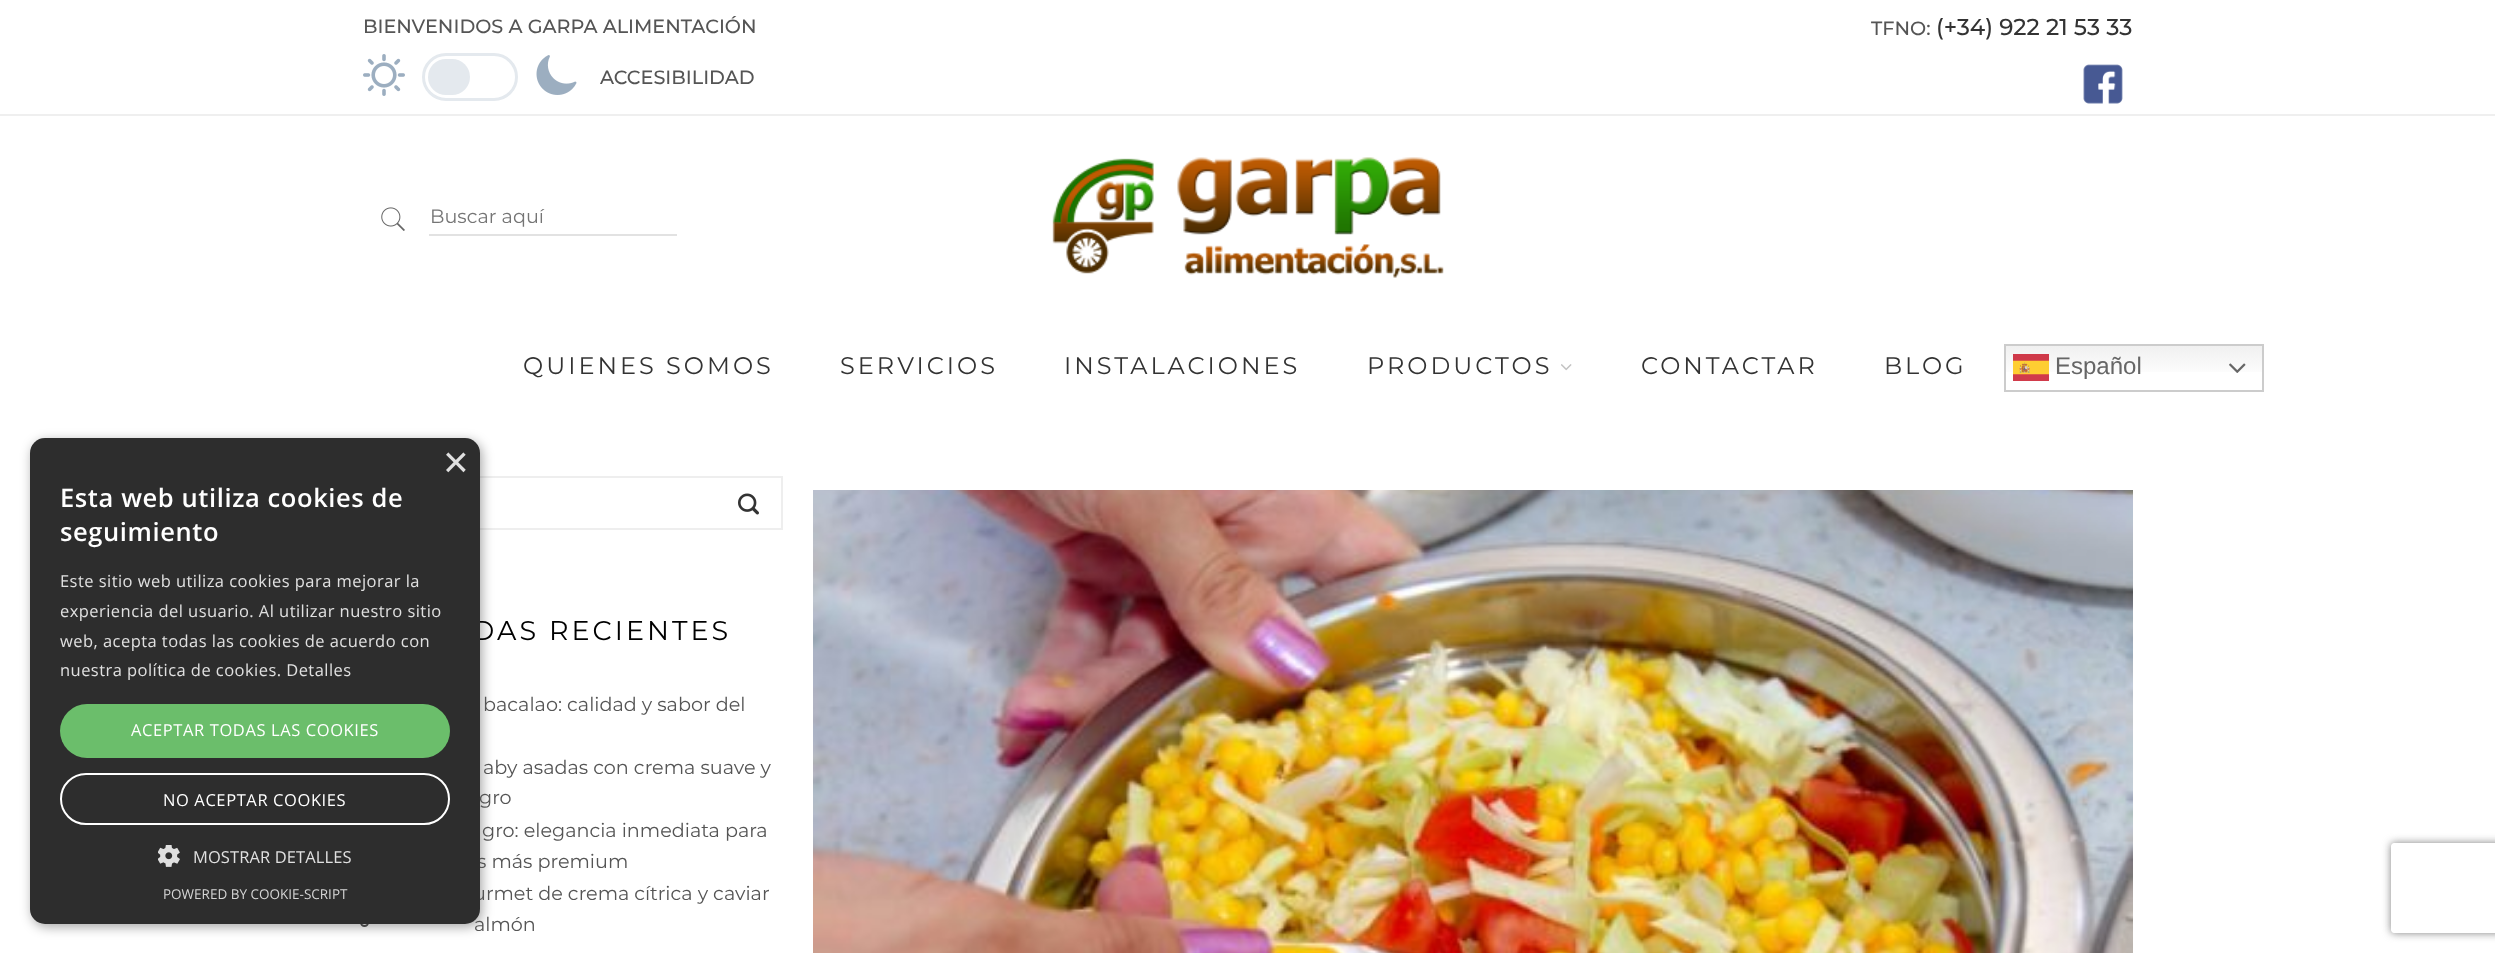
(async () => {
const canvas = document.querySelector("canvas")
canvas.width = 2495
canvas.height = 953
const c = canvas.getContext("2d")
c.miterLimit = 4
c.fontKerning = "normal"
function T(s,x,y){c.fillText(s,x,y)}
function R(x,y,w,h){c.fillRect(x,y,w,h)}
function Q(x,y,w,h,r){c.beginPath();c.roundRect(x,y,w,h,r);c.fill()}
async function I(src,x,y,w,h){const img=new Image();img.src=src;await img.decode();c.drawImage(img,x,y,w,h)}
let gradient, path
c.fillStyle="#fff"
R(0,0,2495,953)
c.strokeStyle="#eee"
c.lineWidth=2
c.strokeRect(364,477,418,52)
c.beginPath()
c.arc(364.5,922.5,3.5,0,7)
c.strokeStyle="#555"
c.stroke()
c.fillStyle="#00000059"
c.filter="blur(6px)"
c.beginPath()
c.roundRect(32,441,450,486,15)
c.fill()
c.filter="none"
c.letterSpacing="3px"
c.font="27px Montserrat"
c.fillStyle="#000"
T("DAS RECIENTES",472,640)
c.letterSpacing="0px"
c.font="19.2px Montserrat"
c.fillStyle="#555"
T("s más premium",477,868)
T("urmet de crema cítrica y caviar",473,900)
T("almón",474,931)
c.fillStyle="#2d2d2d"
Q(30,438,450,486,15)
c.font="44px Liberation Sans"
c.fillStyle="#e0e0e0"
T("×",443,477)
c.letterSpacing="0.6px"
c.font="600 25.5px Open Sans"
c.fillStyle="#fff"
T("Esta web utiliza cookies de",60,507)
T("seguimiento",60,541)
c.letterSpacing="0.45px"
c.font="16.5px Open Sans"
c.fillStyle="#e0e0e0"
T("Este sitio web utiliza cookies para mejorar la",60,587)
T("experiencia del usuario. Al utilizar nuestro sitio",60,617)
T("web, acepta todas las cookies de acuerdo con",60,647)
T("nuestra política de cookies. Detalles",60,676)
c.fillStyle="#6bbe6b"
Q(60,704,390,54,27)
c.letterSpacing="0.6px"
c.fillStyle="#fff"
T("ACEPTAR TODAS LAS COOKIES",131,736)
c.beginPath()
c.roundRect(61,774,388,50,25)
c.strokeStyle="#fff"
c.stroke()
T("NO ACEPTAR COOKIES",163,806)
await I("1.png",158,845,22,22)
c.letterSpacing="0.1px"
c.fillStyle="#e0e0e0"
T("MOSTRAR DETALLES",193,863)
c.letterSpacing="0px"
c.font="13.5px Open Sans"
c.fillStyle="#d5d5d5"
T("POWERED BY COOKIE-SCRIPT",163,899)
c.fillStyle="#efefef"
R(0,114,2495,2)
c.font="500 19.2px Montserrat"
c.fillStyle="#555"
T("BIENVENIDOS A GARPA ALIMENTACIÓN",363,33)
await I("2.png",363,54,42,42)
c.beginPath()
c.roundRect(423.5,54.5,93,45,22.5)
c.strokeStyle="#e4e9ee"
c.lineWidth=3
c.stroke()
c.fillStyle="#e4e9ee"
Q(428,59,42,36,18)
await I("3.png",536,55,41,40)
c.fillStyle="#555"
T("ACCESIBILIDAD",600,84)
T("TFNO:",1871,35)
c.font="500 23px Montserrat"
c.fillStyle="#333"
T("(+34) 922 21 53 33",1936,35)
await I("4.png",2083,64,40,40)
await I("5.png",381,207,24,24)
c.fillStyle="#e2e2e2"
R(429,234,248,2)
c.font="19.2px Montserrat"
c.fillStyle="#757575"
T("Buscar aquí",430,223)
await I("6.png",1052,157,392,121)
c.letterSpacing="3px"
c.font="24px Montserrat"
c.fillStyle="#333"
T("QUIENES SOMOS",523,374)
T("SERVICIOS",840,374)
T("INSTALACIONES",1064,374)
T("PRODUCTOS",1367,374)
await I("7.png",1561,364,11,7)
T("CONTACTAR",1641,374)
T("BLOG",1884,374)
gradient = c.createLinearGradient(2134,344,2134,392)
gradient.addColorStop(0,"#efefef")
gradient.addColorStop(.7,"#fff")
c.fillStyle = gradient
R(2006,346,256,26)
c.strokeStyle="#ccc"
c.lineWidth=2
c.strokeRect(2005,345,258,46)
await I("8.png",2013,354,36,27)
c.letterSpacing="0px"
c.font="24px Liberation Sans"
c.fillStyle="#666"
T("Español",2055,374)
await I("9.png",2229,363,17,10)
await I("10.png",738,493,21,22)
c.font="19.2px Montserrat"
c.fillStyle="#555"
T("bacalao: calidad y sabor del",483,711)
T("aby asadas con crema suave y",483,774)
T("gro",479,804)
T("gro: elegancia inmediata para",482,837)
await I("11.png",813,490,1320,463)
c.save()
path = new Path2D("M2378 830h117v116h-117zm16 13h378c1.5 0 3 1.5 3 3v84c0 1.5-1.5 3-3 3h-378c-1.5 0-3-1.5-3-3v-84c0-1.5 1.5-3 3-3z")
c.clip(path,"evenodd")
c.fillStyle="#808080"
c.filter="blur(4px)"
c.beginPath()
c.roundRect(2391,843,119,90,3)
c.fill()
c.filter="none"
c.restore()
})()
